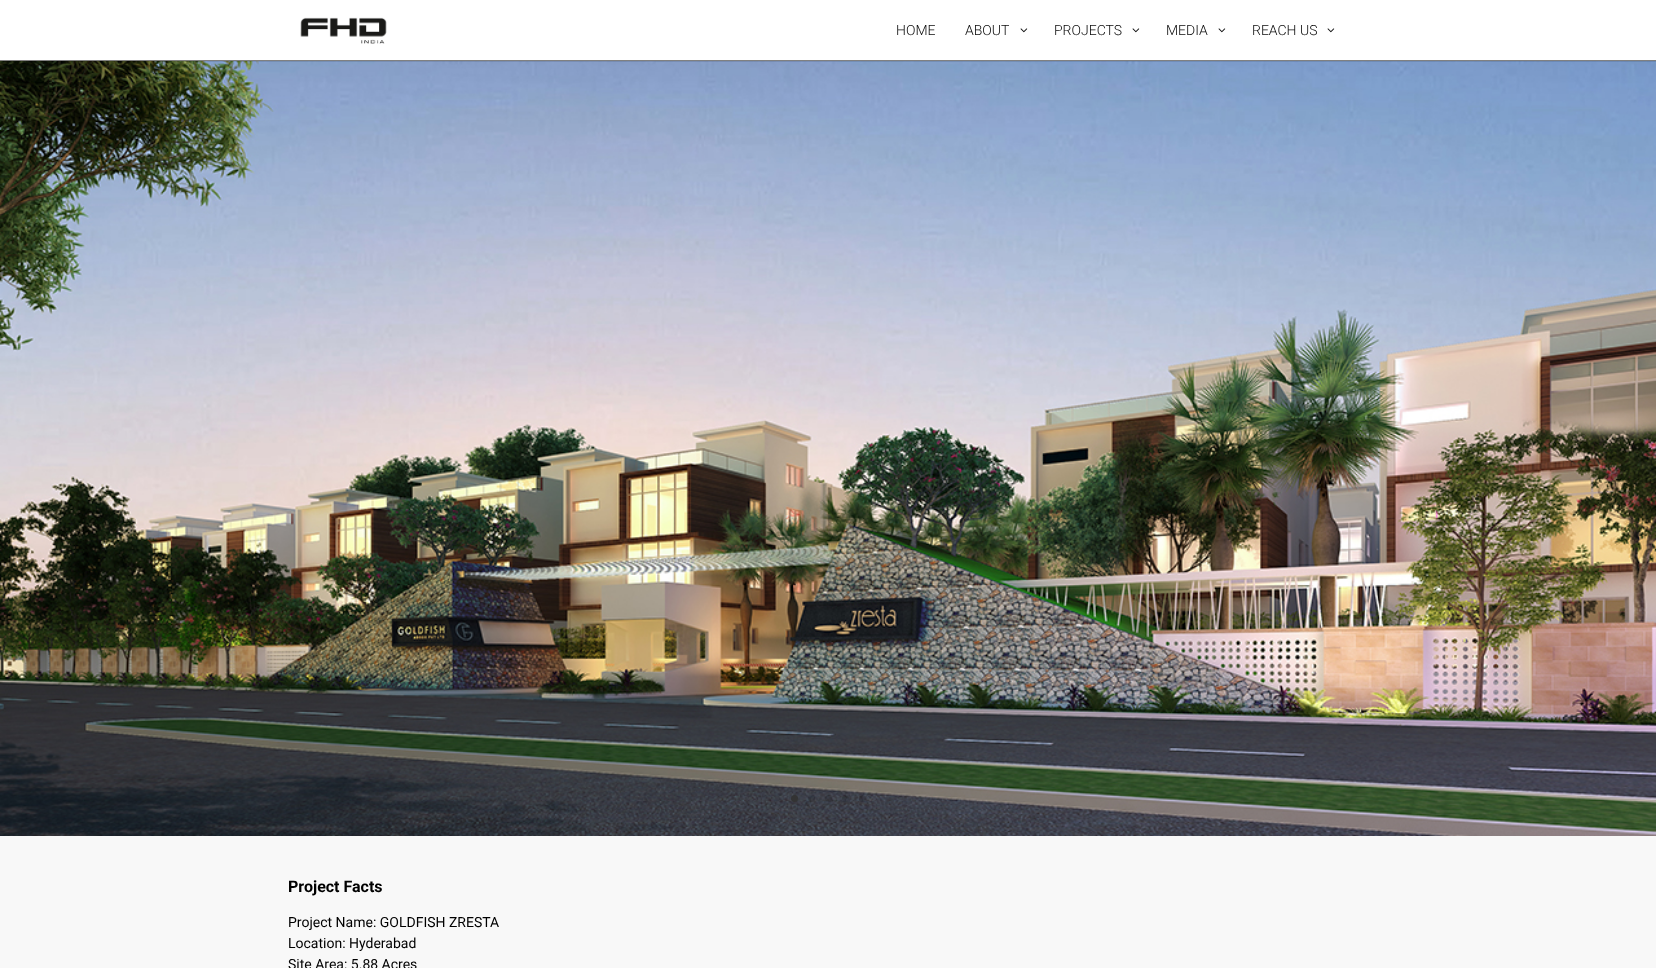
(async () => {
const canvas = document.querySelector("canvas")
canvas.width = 1656
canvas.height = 968
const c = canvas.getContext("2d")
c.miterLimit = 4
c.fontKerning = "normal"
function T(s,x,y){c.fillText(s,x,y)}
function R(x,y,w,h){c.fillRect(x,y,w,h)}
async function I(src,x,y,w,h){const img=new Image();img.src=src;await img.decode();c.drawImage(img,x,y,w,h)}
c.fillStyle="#f8f8f8"
R(0,0,1656,968)
await I("3.png",0,61,1656,775)
c.fillStyle="#0000001a"
R(0,61,1656,1)
c.fillStyle="#fff"
R(0,0,1656,60)
c.fillStyle="#808080"
R(0,60,1656,1)
await I("1.png",300,17,87,27)
c.font="300 14px Roboto"
c.fillStyle="#0a0a0a"
T("HOME",896,35)
T("ABOUT",965,35)
await I("2.png",1020,28,8,5)
T("PROJECTS",1054,35)
await I("2.png",1132,28,8,5)
T("MEDIA",1166,35)
await I("2.png",1218,28,8,5)
T("REACH US",1252,35)
await I("2.png",1327,28,8,5)
c.fillStyle="#333"
c.beginPath()
c.arc(794.5,798.5,3.5,0,7)
c.fill()
c.fillStyle="#00000026"
c.beginPath()
c.arc(811.5,798.5,3.5,0,7)
c.fill()
c.beginPath()
c.arc(828.5,798.5,3.5,0,7)
c.fill()
c.beginPath()
c.arc(845.5,798.5,3.5,0,7)
c.fill()
c.beginPath()
c.arc(862.5,798.5,3.5,0,7)
c.fill()
c.font="bold 16px Roboto"
c.fillStyle="#000"
T("Project Facts",288,892)
c.font="14px Roboto"
T("Project Name: GOLDFISH ZRESTA",288,927)
T("Location: Hyderabad",288,948)
T("Site Area: 5.88 Acres",288,969)
})()
